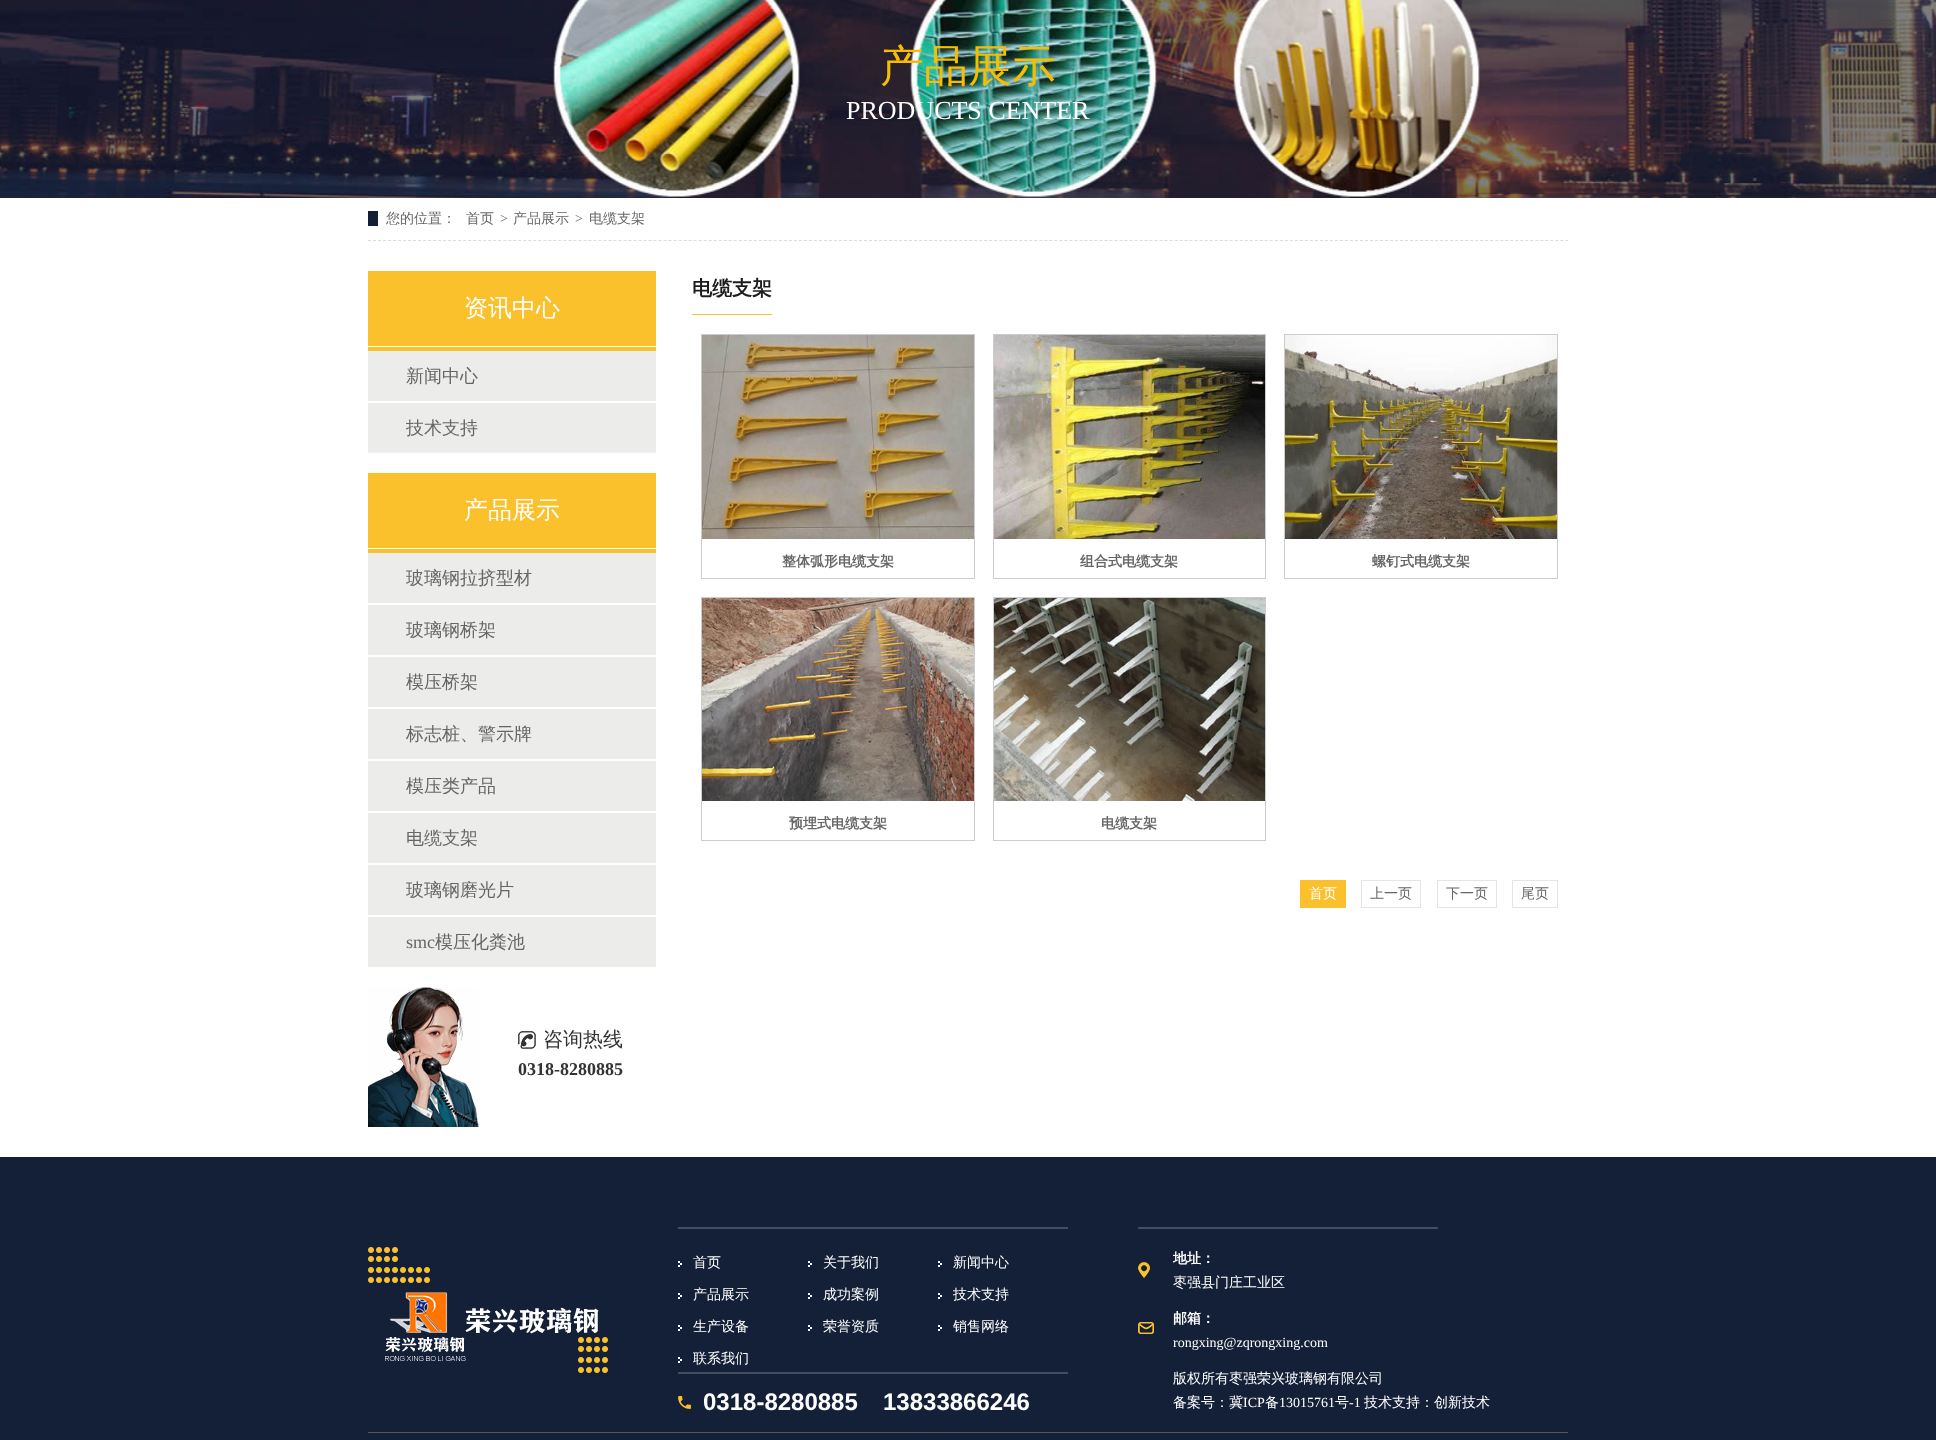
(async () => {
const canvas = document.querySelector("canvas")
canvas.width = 1936
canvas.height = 1440
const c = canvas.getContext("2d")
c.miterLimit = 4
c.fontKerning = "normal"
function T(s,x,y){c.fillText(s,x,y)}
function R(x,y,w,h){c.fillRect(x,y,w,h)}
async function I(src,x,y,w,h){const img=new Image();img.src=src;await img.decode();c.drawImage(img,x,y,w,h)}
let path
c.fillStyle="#fff"
R(0,0,1936,1440)
await I("1.png",0,0,1936,198)
c.font="500 44px WenQuanYi Zen Hei"
c.fillStyle="#f8bd01"
T("产品展示",880,81)
c.font="26px Liberation Serif"
c.fillStyle="#fff"
T("PRODUCTS CENTER",846,119)
path = new Path2D("M368 240.5h1200")
c.strokeStyle="#dcdcdc"
c.setLineDash([3,2.01])
c.stroke(path)
c.font="500 14px WenQuanYi Zen Hei"
c.fillStyle="#666"
T("您的位置：",386,223)
c.fillStyle="#131f37"
R(368,211,10,15)
c.fillStyle="#666"
T("首页",466,223)
c.font="14px Liberation Serif"
T(">",500,223)
c.font="500 14px WenQuanYi Zen Hei"
T("产品展示",513,223)
c.font="14px Liberation Serif"
T(">",575,223)
c.font="500 14px WenQuanYi Zen Hei"
T("电缆支架",589,223)
c.fillStyle="#fac12c"
R(368,271,288,80)
c.fillStyle="#fff"
R(368,346,288,1)
c.font="500 24px WenQuanYi Zen Hei"
T("资讯中心",464,316)
c.fillStyle="#ececeb"
R(368,351,288,50)
c.font="500 18px WenQuanYi Zen Hei"
c.fillStyle="#666"
T("新闻中心",406,382)
c.fillStyle="#ececeb"
R(368,403,288,50)
c.fillStyle="#666"
T("技术支持",406,434)
c.fillStyle="#fac12c"
R(368,473,288,80)
c.fillStyle="#fff"
R(368,548,288,1)
c.font="500 24px WenQuanYi Zen Hei"
T("产品展示",464,518)
c.fillStyle="#ececeb"
R(368,553,288,50)
c.font="500 18px WenQuanYi Zen Hei"
c.fillStyle="#666"
T("玻璃钢拉挤型材",406,584)
c.fillStyle="#ececeb"
R(368,605,288,50)
c.fillStyle="#666"
T("玻璃钢桥架",406,636)
c.fillStyle="#ececeb"
R(368,657,288,50)
c.fillStyle="#666"
T("模压桥架",406,688)
c.fillStyle="#ececeb"
R(368,709,288,50)
c.fillStyle="#666"
T("标志桩、警示牌",406,740)
c.fillStyle="#ececeb"
R(368,761,288,50)
c.fillStyle="#666"
T("模压类产品",406,792)
c.fillStyle="#ececeb"
R(368,813,288,50)
c.fillStyle="#666"
T("电缆支架",406,844)
c.fillStyle="#ececeb"
R(368,865,288,50)
c.fillStyle="#666"
T("玻璃钢磨光片",406,896)
c.fillStyle="#ececeb"
R(368,917,288,50)
c.font="18px Liberation Serif"
c.fillStyle="#666"
T("smc",406,948)
c.font="500 18px WenQuanYi Zen Hei"
T("模压化粪池",435,948)
await I("2.png",368,987,111,140)
await I("3.png",518,1031,18,18)
c.font="500 20px WenQuanYi Zen Hei"
c.fillStyle="#333"
T("咨询热线",543,1046)
c.font="bold 18px Liberation Serif"
T("0318-8280885",518,1075)
c.fillStyle="#fac12c"
R(692,314,80,1)
c.font="bold 20px WenQuanYi Zen Hei"
c.fillStyle="#1d1c1a"
T("电缆支架",692,295)
c.strokeStyle="#ccc"
c.setLineDash([])
c.strokeRect(701.5,334.5,273,244)
await I("4.png",702,335,272,204)
c.font="bold 14px WenQuanYi Zen Hei"
c.fillStyle="#666"
T("整体弧形电缆支架",782,566)
c.strokeRect(993.5,334.5,272,244)
await I("5.png",994,335,271,204)
T("组合式电缆支架",1080,566)
c.strokeRect(1284.5,334.5,273,244)
await I("6.png",1285,335,272,204)
T("螺钉式电缆支架",1372,566)
c.strokeRect(701.5,597.5,273,243)
await I("7.png",702,598,272,203)
T("预埋式电缆支架",789,828)
c.strokeRect(993.5,597.5,272,243)
await I("8.png",994,598,271,203)
T("电缆支架",1101,828)
c.fillStyle="#fac12c"
R(1300,880,46,28)
c.font="500 14px WenQuanYi Zen Hei"
c.fillStyle="#fff"
T("首页",1309,898)
c.strokeStyle="#e5e5e5"
c.strokeRect(1361.5,880.5,59,27)
c.fillStyle="#666"
T("上一页",1370,898)
c.strokeRect(1437.5,880.5,59,27)
T("下一页",1446,898)
c.strokeRect(1512.5,880.5,45,27)
T("尾页",1521,898)
c.fillStyle="#142038"
R(0,1157,1936,283)
await I("9.png",368,1247,240,126)
await I("10.png",385,1292,214,69)
c.fillStyle="#434d60"
R(678,1227,390,2)
await I("11.png",678,1261,4,6)
c.fillStyle="#fff"
T("首页",693,1267)
await I("11.png",808,1261,4,6)
T("关于我们",823,1267)
await I("11.png",938,1261,4,6)
T("新闻中心",953,1267)
await I("11.png",678,1293,4,6)
T("产品展示",693,1299)
await I("11.png",808,1293,4,6)
T("成功案例",823,1299)
await I("11.png",938,1293,4,6)
T("技术支持",953,1299)
await I("11.png",678,1325,4,6)
T("生产设备",693,1331)
await I("11.png",808,1325,4,6)
T("荣誉资质",823,1331)
await I("11.png",938,1325,4,6)
T("销售网络",953,1331)
await I("11.png",678,1357,4,6)
T("联系我们",693,1363)
c.fillStyle="#434d60"
R(678,1372,390,2)
await I("12.png",678,1396,13,13)
c.font="bold 24px Liberation Sans"
c.fillStyle="#fff"
T("0318-8280885",703,1410)
T("13833866246",883,1410)
c.fillStyle="#434d60"
R(1138,1227,300,2)
await I("13.png",1138,1262,12,16)
c.font="bold 14px WenQuanYi Zen Hei"
c.fillStyle="#fff"
T("地址：",1173,1263)
c.font="500 14px WenQuanYi Zen Hei"
T("枣强县门庄工业区",1173,1287)
await I("14.png",1138,1322,16,12)
c.font="bold 14px WenQuanYi Zen Hei"
T("邮箱：",1173,1323)
c.font="14px Liberation Serif"
T("rongxing@zqrongxing.com",1173,1347)
c.font="500 14px WenQuanYi Zen Hei"
T("版权所有枣强荣兴玻璃钢有限公司",1173,1383)
T("备案号：冀",1173,1407)
c.font="14px Liberation Serif"
T("ICP",1243,1407)
c.font="500 14px WenQuanYi Zen Hei"
T("备",1265,1407)
c.font="14px Liberation Serif"
T("13015761",1279,1407)
c.font="500 14px WenQuanYi Zen Hei"
T("号",1335,1407)
c.font="14px Liberation Serif"
T("-1",1349,1407)
c.font="500 14px WenQuanYi Zen Hei"
T("技术支持：创新技术",1364,1407)
c.fillStyle="#555"
R(368,1432,1200,1)
})()
